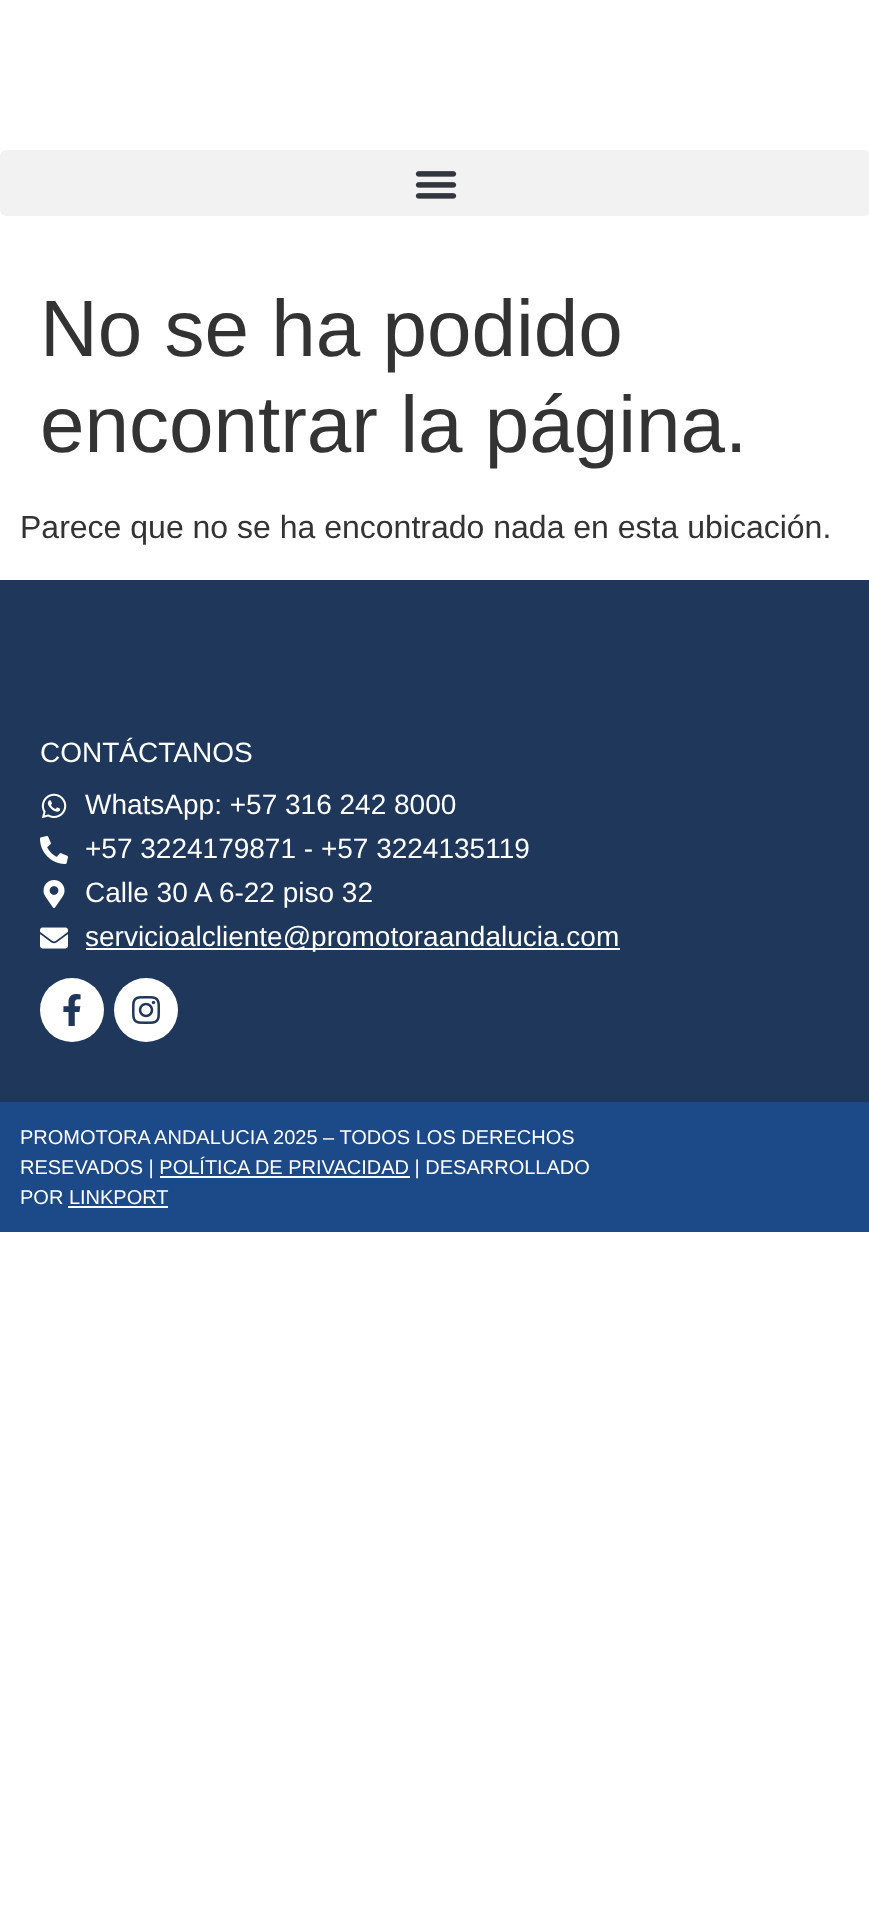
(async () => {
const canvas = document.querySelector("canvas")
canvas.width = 869
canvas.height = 1912
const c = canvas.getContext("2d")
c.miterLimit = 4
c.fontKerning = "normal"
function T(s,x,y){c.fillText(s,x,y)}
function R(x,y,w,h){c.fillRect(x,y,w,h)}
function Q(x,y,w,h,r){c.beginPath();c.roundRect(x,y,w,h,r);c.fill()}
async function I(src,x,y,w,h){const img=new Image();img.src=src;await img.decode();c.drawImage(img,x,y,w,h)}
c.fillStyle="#fff"
R(0,0,869,1912)
c.fillStyle="#f2f2f2"
Q(0,150,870,66,6)
await I("1.png",415,171,42,28)
c.font="80px Liberation Sans"
c.fillStyle="#333"
T("No se ha podido",40,356)
T("encontrar la página.",40,452)
c.font="32px Liberation Sans"
T("Parece que no se ha encontrado nada en esta ubicación.",20,538)
c.fillStyle="#1e375b"
R(0,580,869,522)
c.font="28px Liberation Sans"
c.fillStyle="#fff"
T("CONTÁCTANOS",40,762)
await I("2.png",41,793,26,26)
T("WhatsApp: +57 316 242 8000",85,814)
await I("3.png",40,836,28,28)
T("+57 3224179871 - +57 3224135119",85,858)
await I("4.png",43,880,22,28)
T("Calle 30 A 6-22 piso 32",85,902)
await I("5.png",40,927,28,22)
R(86,948,534,2)
T("servicioalcliente@promotoraandalucia.com",85,946)
c.beginPath()
c.arc(72,1010,32,0,7)
c.fill()
await I("6.png",63,994,18,32)
c.beginPath()
c.arc(146,1010,32,0,7)
c.fill()
await I("7.png",132,996,28,28)
c.fillStyle="#1c4987"
R(0,1102,869,130)
c.font="20px Liberation Sans"
c.fillStyle="#fff"
T("PROMOTORA ANDALUCIA 2025 – TODOS LOS DERECHOS",20,1144)
T("RESEVADOS | POLÍTICA DE PRIVACIDAD | DESARROLLADO",20,1174)
R(160,1176,250,2)
T("POR LINKPORT",20,1204)
R(68,1206,100,2)
})()
